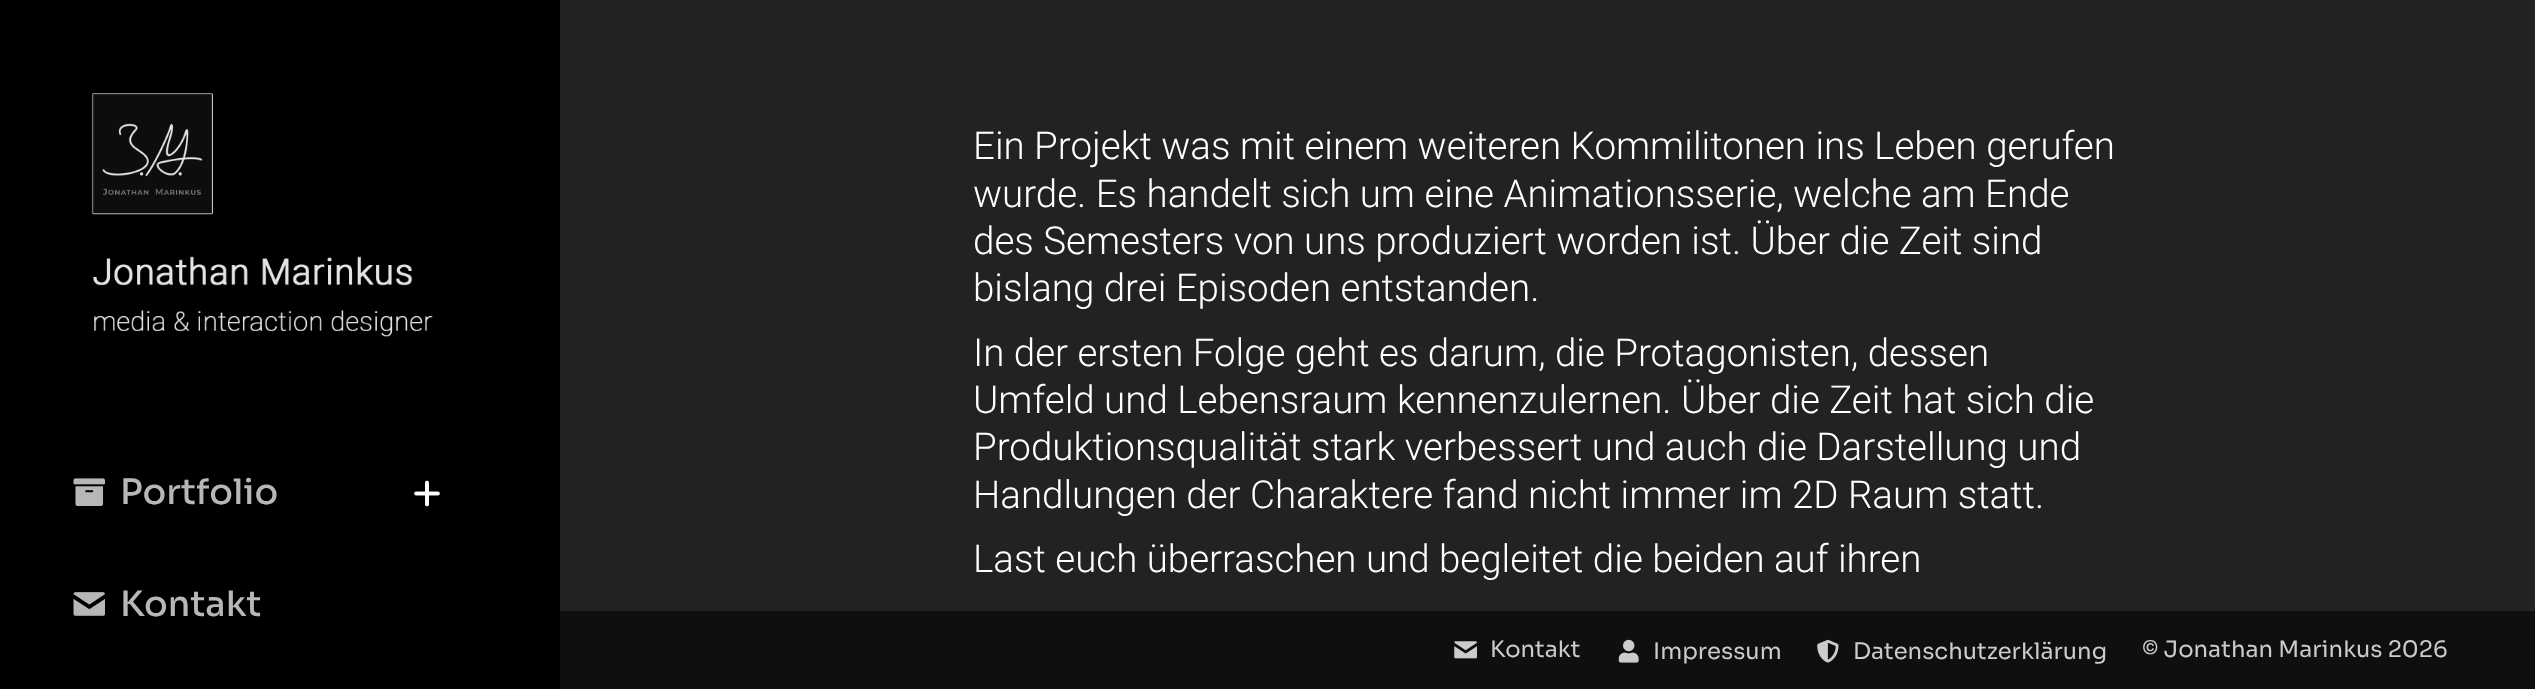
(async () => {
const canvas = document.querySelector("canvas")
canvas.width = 2535
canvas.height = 689
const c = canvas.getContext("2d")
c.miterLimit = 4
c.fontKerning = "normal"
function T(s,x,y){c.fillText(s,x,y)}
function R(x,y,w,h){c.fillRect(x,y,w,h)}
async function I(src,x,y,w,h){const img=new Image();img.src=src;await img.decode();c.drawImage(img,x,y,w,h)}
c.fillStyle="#222"
R(0,0,2535,689)
c.fillStyle="#000"
R(0,0,560,689)
await I("1.png",91,93,342,244)
await I("2.png",73,478,32,28)
c.font="500 35px Sora"
c.fillStyle="#b7b7b7"
T("Portfolio",120,504)
await I("3.png",414,480,26,27)
await I("4.png",73,592,32,24)
T("Kontakt",120,616)
c.font="300 38.5px Roboto"
c.fillStyle="#fff"
T("Ein Projekt was mit einem weiteren Kommilitonen ins Leben gerufen",973,159)
T("wurde. Es handelt sich um eine Animationsserie, welche am Ende",973,207)
T("des Semesters von uns produziert worden ist. Über die Zeit sind",973,254)
T("bislang drei Episoden entstanden.",973,301)
T("In der ersten Folge geht es darum, die Protagonisten, dessen",973,366)
T("Umfeld und Lebensraum kennenzulernen. Über die Zeit hat sich die",973,413)
T("Produktionsqualität stark verbessert und auch die Darstellung und",973,460)
T("Handlungen der Charaktere fand nicht immer im 2D Raum statt.",973,508)
T("Last euch überraschen und begleitet die beiden auf ihren",973,572)
c.fillStyle="#0f0f0f"
R(560,611,1975,78)
await I("5.png",1454,641,23,18)
c.font="22.75px Sora"
c.fillStyle="#ccc"
T("Kontakt",1490,657)
await I("6.png",1618,639,21,24)
T("Impressum",1653,659)
await I("7.png",1817,639,22,24)
T("Datenschutzerklärung",1853,659)
T("© Jonathan Marinkus 2026",2142,657)
})()
